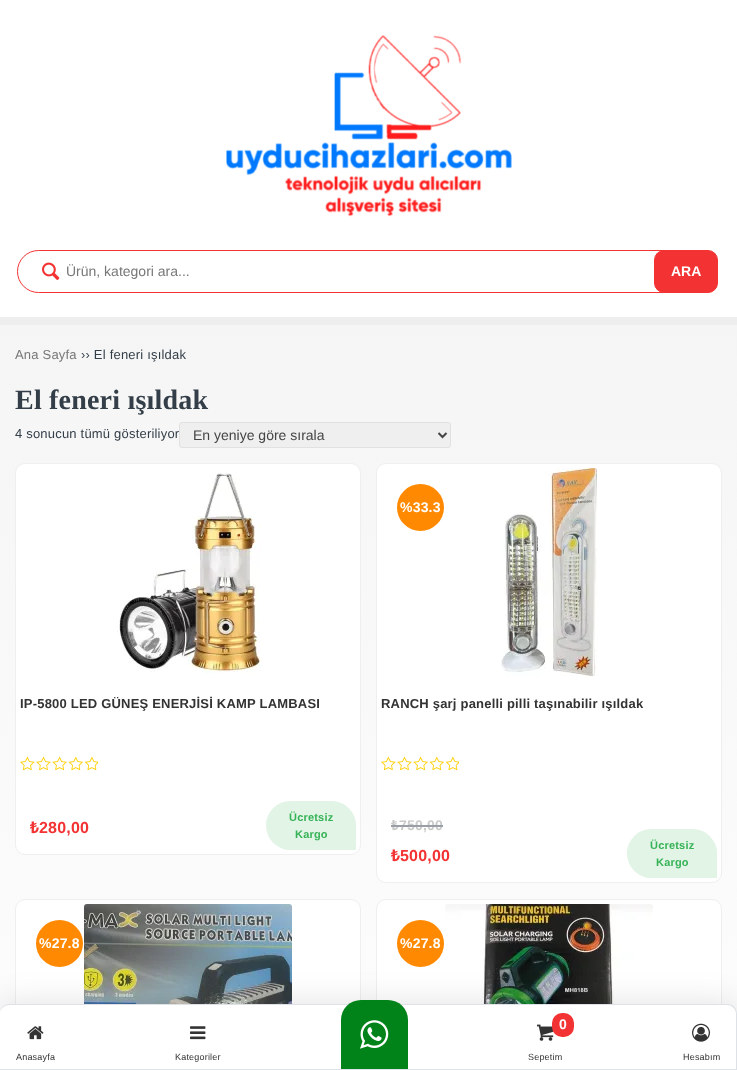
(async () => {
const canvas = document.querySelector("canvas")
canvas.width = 737
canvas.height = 1070
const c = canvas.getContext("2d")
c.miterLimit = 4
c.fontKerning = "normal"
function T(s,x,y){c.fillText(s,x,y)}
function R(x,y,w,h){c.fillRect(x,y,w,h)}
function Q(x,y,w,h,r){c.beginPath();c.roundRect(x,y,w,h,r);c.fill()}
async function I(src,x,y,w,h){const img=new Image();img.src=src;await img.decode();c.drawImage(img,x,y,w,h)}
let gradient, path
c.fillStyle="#fff"
R(0,0,737,1070)
await I("1.png",226,35,286,182)
c.beginPath()
c.roundRect(17.5,250.5,685,42,21)
c.strokeStyle="#f33333"
c.stroke()
await I("2.png",42,262,18,18)
c.font="14px Liberation Sans"
c.fillStyle="#777"
T("Ürün, kategori ara...",66,276)
c.fillStyle="#f33333"
c.beginPath()
c.roundRect(654.5,250.5,63,42,9.5)
c.fill()
c.stroke()
c.font="bold 14px Liberation Sans"
c.fillStyle="#fff"
T("ARA",671,276)
gradient = c.createLinearGradient(369,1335,369,12)
gradient.addColorStop(.02,"#fff")
gradient.addColorStop(1,"#f2f2f2")
c.fillStyle = gradient
R(0,325,737,689)
c.fillStyle="#fff"
c.beginPath()
c.roundRect(15.5,899.5,345,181,9.5)
c.fill()
c.strokeStyle="#efefef"
c.stroke()
c.fillStyle="#ff8900"
c.beginPath()
c.arc(59.5,943.5,23.5,0,7)
c.fill()
await I("11.png",84,904,208,100)
c.fillStyle="#fff"
c.beginPath()
c.roundRect(376.5,899.5,345,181,9.5)
c.fill()
c.stroke()
c.fillStyle="#ff8900"
c.beginPath()
c.arc(420.5,943.5,23.5,0,7)
c.fill()
await I("12.png",445,904,208,100)
c.save()
path = new Path2D("M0 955h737v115h-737zm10 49h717c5.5 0 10 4.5 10 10v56h-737v-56c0-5.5 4.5-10 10-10z")
c.clip(path,"evenodd")
c.fillStyle="#0000001f"
c.filter="blur(16px)"
c.beginPath()
c.roundRect(0,1004,737,66,10)
c.fill()
c.filter="none"
c.restore()
c.fillStyle="#fff"
path = new Path2D("M10 1005h717c5 0 9 4 9 9v55h-736v-55c0-5 4-9 10-9z")
c.fill(path)
c.fillStyle="#dee2e6"
path = new Path2D("M10 1004h717c6 0 10 4 10 10v56h-737v-56c0-6 4-10 10-10zm0 1h717c5 0 9 4 9 9v55h-736v-55c0-5 4-9 10-9z")
c.fill(path,"evenodd")
await I("3.png",27,1026,17,14)
c.letterSpacing="0.2px"
c.font="9px Liberation Sans"
c.fillStyle="#333"
T("Anasayfa",16,1060)
await I("4.png",190,1026,16,14)
T("Kategoriler",175,1060)
c.fillStyle="#018319"
c.beginPath()
c.roundRect(341,1000,67,69,[20,20,0,0])
c.fill()
await I("5.png",360,1020,29,29)
await I("6.png",537,1024,17,17)
c.fillStyle="#f33333"
Q(552,1013,22,24,10)
c.font="bold 14px Liberation Sans"
c.fillStyle="#fff"
T("0",559,1029)
c.font="9px Liberation Sans"
c.fillStyle="#333"
T("Sepetim",528,1060)
await I("7.png",692,1023,18,19)
T("Hesabım",683,1060)
c.fillStyle="#eee"
R(0,317,737,8)
c.font="13px Liberation Sans"
c.fillStyle="#777"
T("Ana Sayfa",15,359)
c.fillStyle="#333e48"
T("›› El feneri ışıldak",81,359)
c.font="bold 28px Liberation Serif"
T("El feneri ışıldak",15,409)
c.font="13px Liberation Sans"
T("4 sonucun tümü gösteriliyor",15,438)
c.fillStyle="#efefef"
c.beginPath()
c.roundRect(179.5,422.5,271,25,2.5)
c.fill()
c.strokeStyle="#e1e1e1"
c.stroke()
path = new Path2D("M438.5 433l4 4l4-4")
c.strokeStyle="#444"
c.lineWidth=2
c.stroke(path)
c.letterSpacing="0px"
c.font="14px Liberation Sans"
c.fillStyle="#444"
T("En yeniye göre sırala",193,440)
c.fillStyle="#fff"
c.beginPath()
c.roundRect(15.5,463.5,345,391,9.5)
c.fill()
c.strokeStyle="#efefef"
c.lineWidth=1
c.stroke()
await I("8.png",117,473,144,201)
c.letterSpacing="0.2px"
c.font="bold 13px Liberation Sans"
c.fillStyle="#333"
T("IP-5800 LED GÜNEŞ ENERJİSİ KAMP LAMBASI",20,708)
await I("9.png",20,756,78,14)
c.font="bold 16px Noto Sans"
c.fillStyle="#f33333"
T("₺",30,833)
c.font="bold 16px Liberation Sans"
T("280,00",39,833)
c.fillStyle="#e1f4e6"
c.beginPath()
c.roundRect(266,801,90,49,[24.5,24.5,0,24.5])
c.fill()
c.font="bold 11px Liberation Sans"
c.fillStyle="#36b257"
T("Ücretsiz",289,821)
T("Kargo",295,838)
c.fillStyle="#fff"
c.beginPath()
c.roundRect(376.5,463.5,345,419,9.5)
c.fill()
c.stroke()
await I("10.png",501,468,96,208)
c.fillStyle="#ff8900"
c.beginPath()
c.arc(420.5,507.5,23.5,0,7)
c.fill()
c.font="bold 14px Liberation Sans"
c.fillStyle="#fff"
T("%33.3",400,512)
c.font="bold 14px Noto Sans"
c.fillStyle="#cacaca"
T("₺",391,830)
c.fillStyle="#999fa4"
R(391,825,8,2)
c.font="bold 14px Liberation Sans"
c.fillStyle="#cacaca"
T("750,00",399,830)
c.fillStyle="#999fa4"
R(399,825,44,2)
c.font="bold 16px Noto Sans"
c.fillStyle="#f33333"
T("₺",391,861)
c.font="bold 16px Liberation Sans"
T("500,00",400,861)
c.fillStyle="#e1f4e6"
c.beginPath()
c.roundRect(627,829,90,49,[24.5,24.5,0,24.5])
c.fill()
c.font="bold 11px Liberation Sans"
c.fillStyle="#36b257"
T("Ücretsiz",650,849)
T("Kargo",656,866)
await I("9.png",381,756,78,14)
c.font="bold 13px Liberation Sans"
c.fillStyle="#333"
T("RANCH şarj panelli pilli taşınabilir ışıldak",381,708)
c.font="bold 14px Liberation Sans"
c.fillStyle="#fff"
T("%27.8",39,948)
T("%27.8",400,948)
})()
